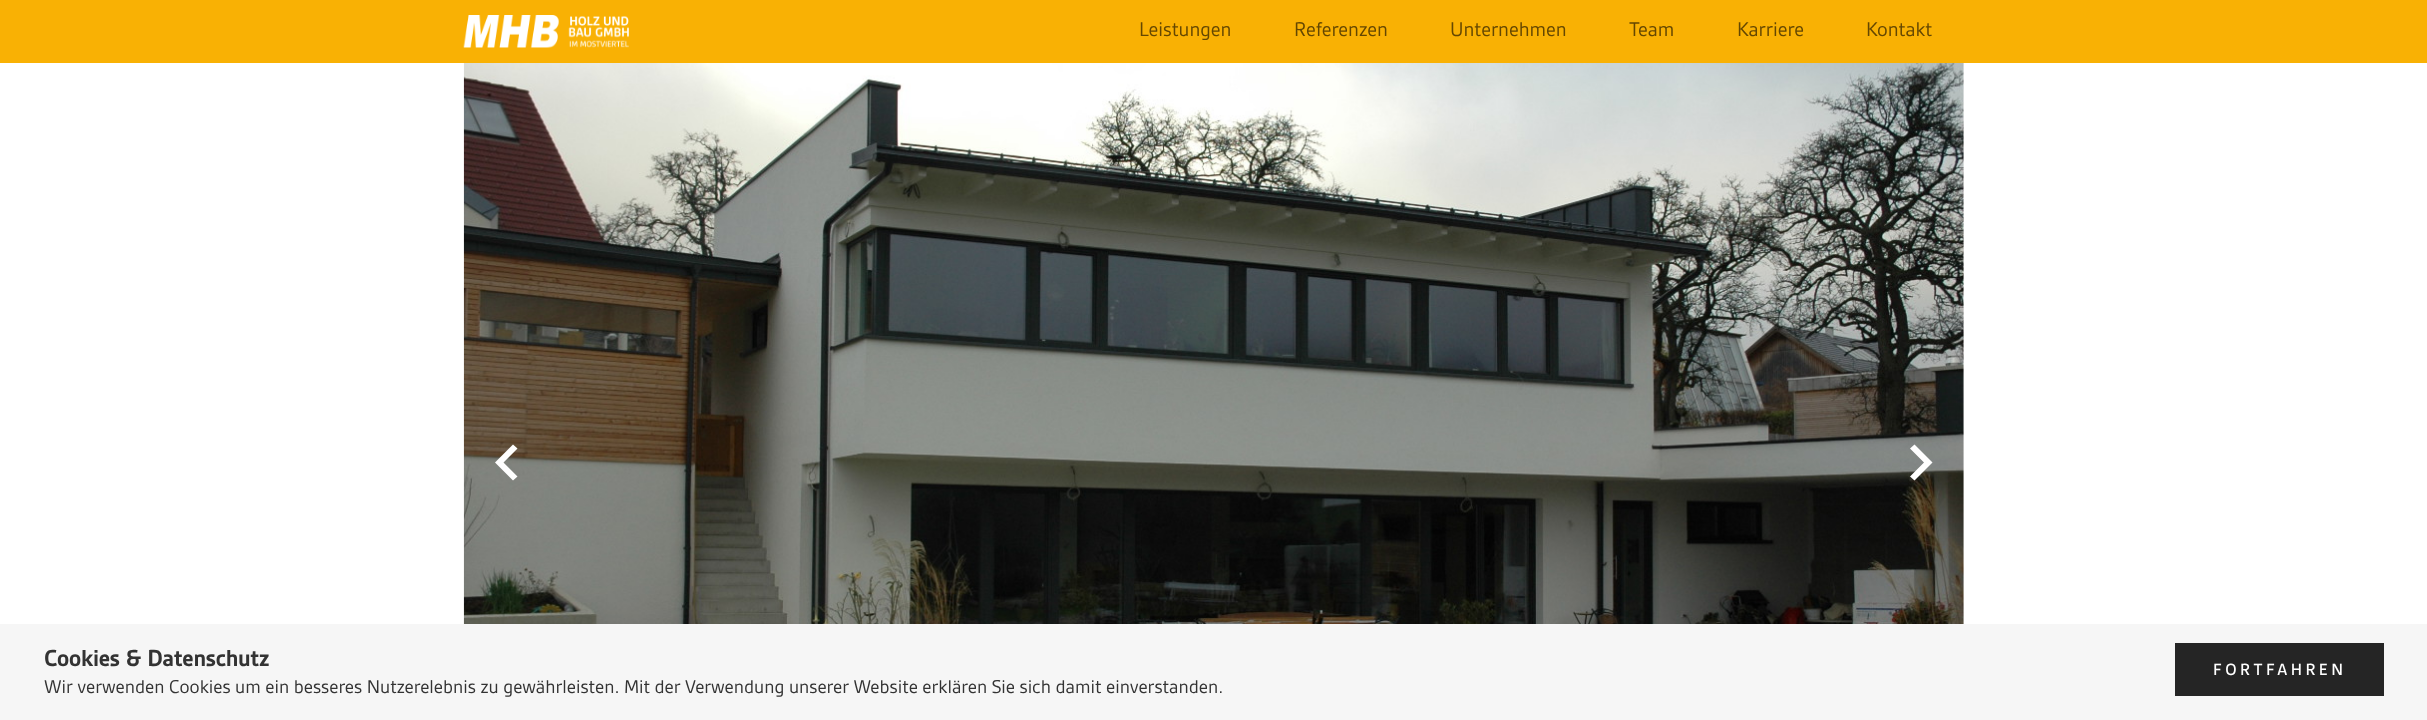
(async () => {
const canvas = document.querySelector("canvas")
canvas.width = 2427
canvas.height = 720
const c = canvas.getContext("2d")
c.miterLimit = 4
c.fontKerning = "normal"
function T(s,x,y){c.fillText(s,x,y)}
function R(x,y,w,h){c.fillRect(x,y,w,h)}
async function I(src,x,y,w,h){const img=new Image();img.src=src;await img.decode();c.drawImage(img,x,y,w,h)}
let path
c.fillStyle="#fff"
R(0,0,2427,720)
c.fillStyle="#f9b104"
R(0,0,2427,63)
await I("1.png",463,15,166,33)
c.font="21.25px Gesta"
c.fillStyle="#644702"
T("Leistungen",1139,36)
T("Referenzen",1294,36)
T("Unternehmen",1450,36)
T("Team",1629,36)
T("Karriere",1737,36)
T("Kontakt",1866,36)
await I("2.png",463,63,1501,561)
c.fillStyle="#fff"
path = new Path2D("M517.5 476.5l-14-14l14-14l-4.5-4l-18 18l18 18z")
c.fill(path)
path = new Path2D("M1910 476.5l14-14l-14-14l4.5-4l18 18l-18 18z")
c.fill(path)
c.fillStyle="#f6f6f6"
R(0,624,2427,96)
c.letterSpacing="-0.25px"
c.font="bold 25px Gesta"
c.fillStyle="#333"
T("Cookies & Datenschutz",44,666)
c.letterSpacing="0px"
c.font="20px Gesta"
T("Wir verwenden Cookies um ein besseres Nutzerelebnis zu gewährleisten. Mit der Verwendung unserer Website erklären Sie sich damit einverstanden.",44,693)
c.fillStyle="#252525"
R(2175,643,209,53)
c.letterSpacing="3.5px"
c.font="500 17.5px Gesta"
c.fillStyle="#fff"
T("FORTFAHREN",2213,675)
})()
